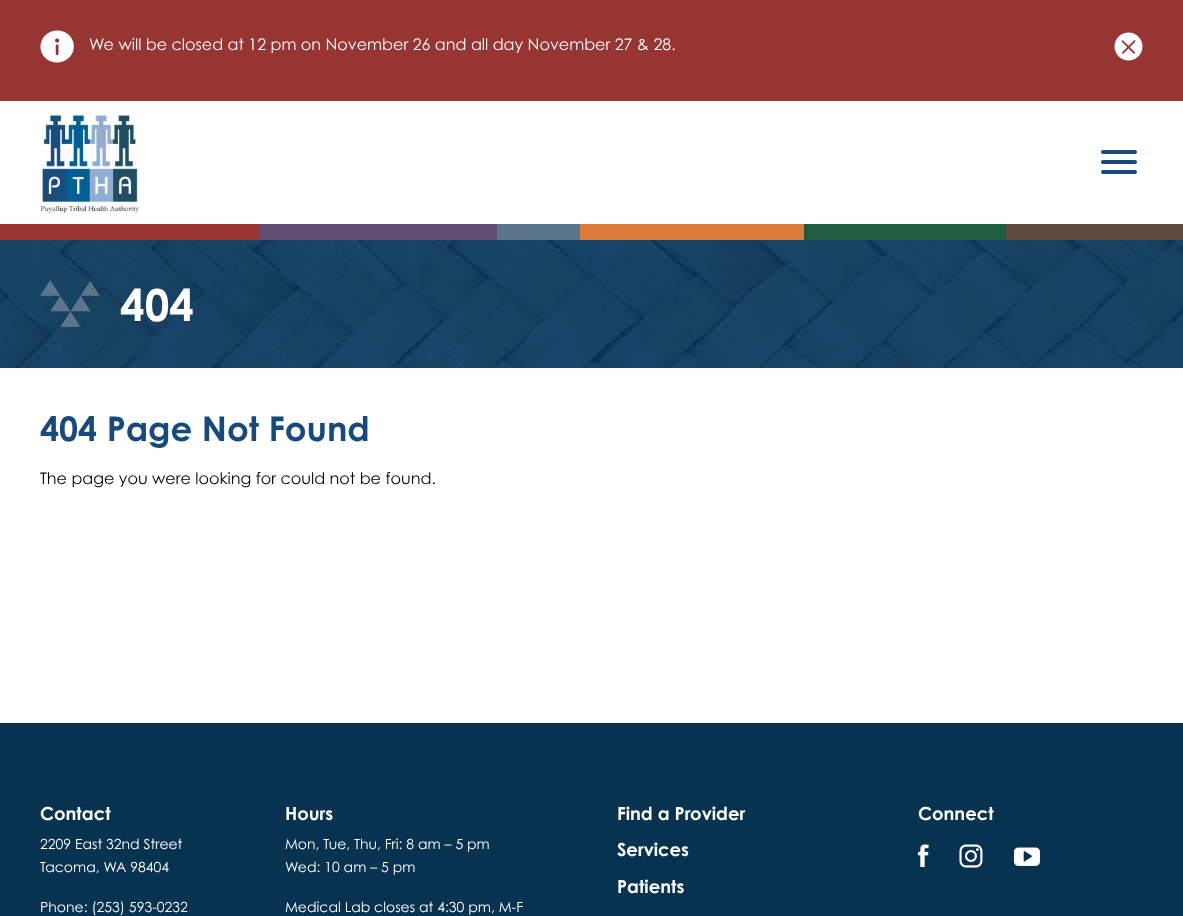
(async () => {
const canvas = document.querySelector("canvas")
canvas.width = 1183
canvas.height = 916
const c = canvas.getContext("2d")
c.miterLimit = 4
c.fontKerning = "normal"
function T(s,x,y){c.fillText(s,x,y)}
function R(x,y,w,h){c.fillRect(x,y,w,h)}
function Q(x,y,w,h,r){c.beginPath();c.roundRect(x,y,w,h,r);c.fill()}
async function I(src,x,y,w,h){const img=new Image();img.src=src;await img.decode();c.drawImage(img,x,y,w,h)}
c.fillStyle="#fff"
R(0,0,1183,916)
c.fillStyle="#963531"
R(0,0,1183,101)
await I("1.png",40,30,34,33)
c.font="16px Century Gothic"
c.fillStyle="#fff"
T("We will be closed at 12 pm on November 26 and all day November 27 & 28.",89,50)
await I("2.png",1114,32,29,29)
await I("3.png",40,115,99,98)
c.fillStyle="#174a7c"
Q(1101,150,36,4,2)
Q(1101,160,36,4,2)
Q(1101,170,36,4,2)
c.fillStyle="#963531"
R(0,224,260,16)
c.fillStyle="#614e75"
R(260,224,237,16)
c.fillStyle="#5b768b"
R(497,224,83,16)
c.fillStyle="#dc7c3a"
R(580,224,224,16)
c.fillStyle="#205c40"
R(804,224,202,16)
c.fillStyle="#5d4c3d"
R(1006,224,177,16)
await I("4.png",0,240,1183,128)
await I("5.png",40,280,60,47)
c.font="bold 44px Century Gothic"
c.fillStyle="#fff"
T("404",120,321)
c.font="bold 34px Century Gothic"
c.fillStyle="#174a7c"
T("404 Page Not Found",40,441)
c.font="16px Century Gothic"
c.fillStyle="#000"
T("The page you were looking for could not be found.",40,484)
c.fillStyle="#073250"
R(0,723,1183,193)
c.font="bold 18px Century Gothic"
c.fillStyle="#fff"
T("Contact",40,820)
c.font="14px Century Gothic"
T("2209 East 32nd Street",40,849)
T("Tacoma, WA 98404",40,872)
T("Phone: (253) 593-0232",40,912)
c.font="bold 18px Century Gothic"
T("Hours",285,820)
c.font="14px Century Gothic"
T("Mon, Tue, Thu, Fri: 8 am – 5 pm",285,849)
T("Wed: 10 am – 5 pm",285,872)
T("Medical Lab closes at 4:30 pm, M-F",285,912)
c.font="bold 18px Century Gothic"
T("Find a Provider",617,820)
T("Services",617,856)
T("Patients",617,893)
T("Connect",918,820)
await I("6.png",918,844,11,23)
await I("7.png",959,844,24,24)
await I("8.png",1013,847,27,19)
})()
